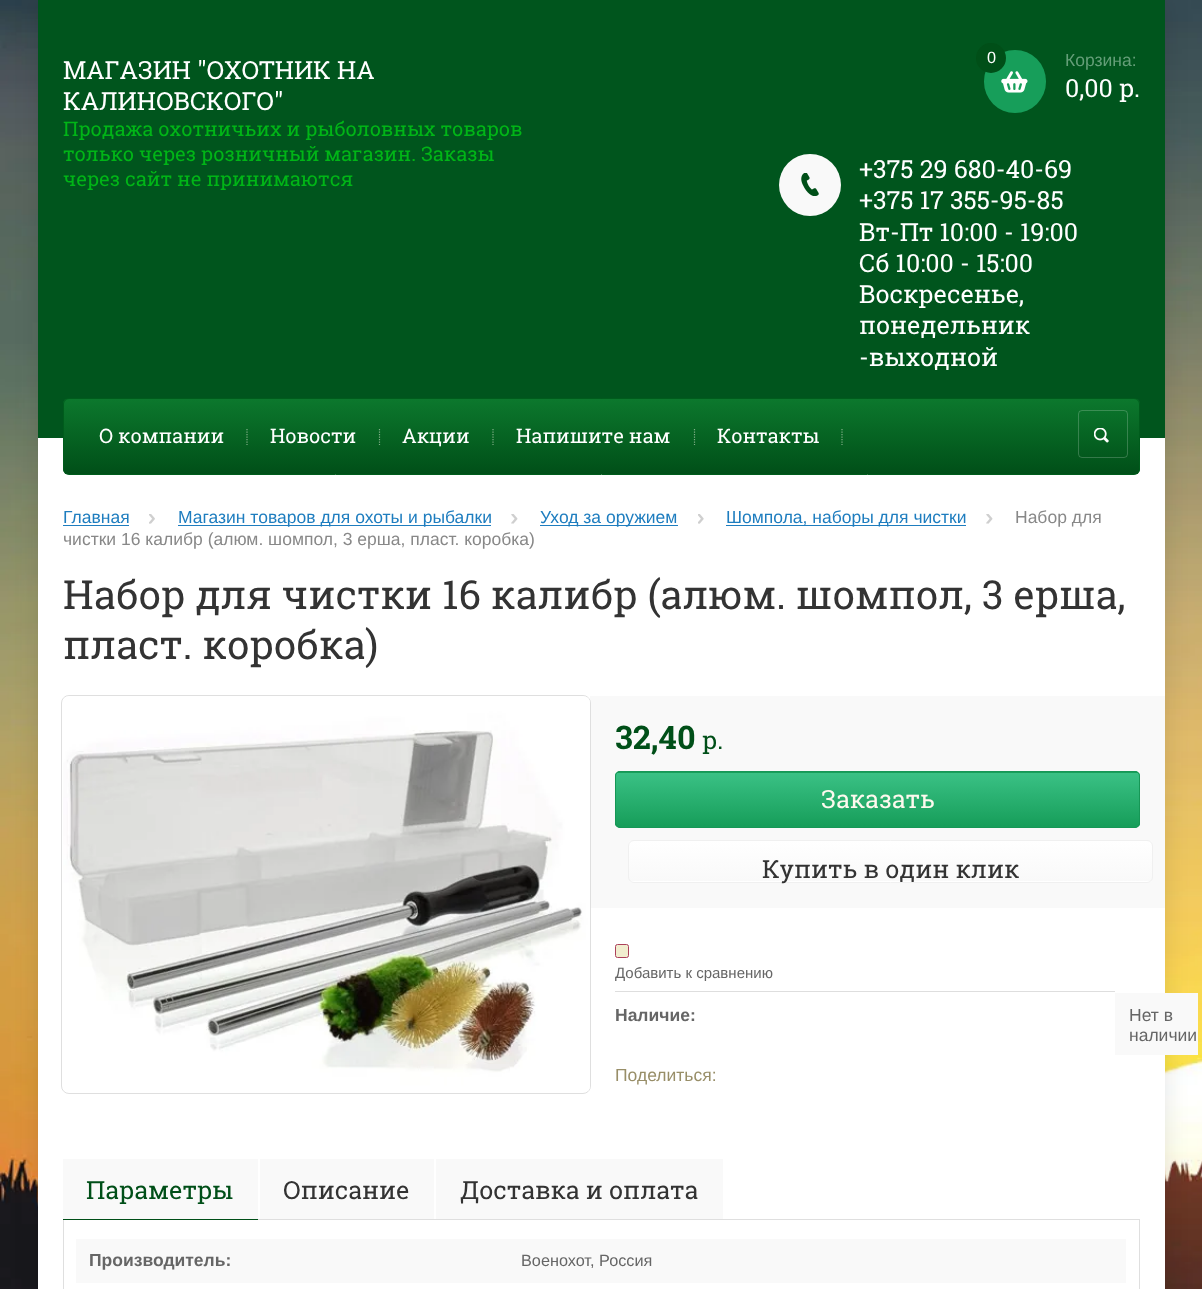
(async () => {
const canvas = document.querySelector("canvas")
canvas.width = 1202
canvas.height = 1289
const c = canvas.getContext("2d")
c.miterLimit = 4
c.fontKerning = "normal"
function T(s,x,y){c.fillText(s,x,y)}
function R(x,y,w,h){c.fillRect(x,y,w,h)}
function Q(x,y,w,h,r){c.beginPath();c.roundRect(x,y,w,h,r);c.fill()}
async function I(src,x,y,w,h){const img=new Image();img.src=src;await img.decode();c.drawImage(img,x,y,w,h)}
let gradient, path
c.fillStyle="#fff"
R(0,0,1202,1289)
await I("1.png",0,0,1202,1289)
c.fillStyle="#0000001a"
c.filter="blur(12.5px)"
c.beginPath()
c.rect(38,0,1127,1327)
c.fill()
c.filter="none"
c.fillStyle="#fff"
R(38,438,1127,851)
c.fillStyle="#00551d"
R(38,0,1127,438)
c.font="25px Roboto Slab"
c.fillStyle="#fff"
T("МАГАЗИН \"ОХОТНИК НА",63,79)
T("КАЛИНОВСКОГО\"",63,110)
c.font="20px Roboto Slab"
c.fillStyle="#00b517"
T("Продажа охотничьих и рыболовных товаров",63,136)
T("только через розничный магазин. Заказы",63,161)
T("через сайт не принимаются",63,186)
c.fillStyle="#179e5a"
Q(984,50,62,63,31)
await I("2.png",1001,71,27,22)
c.fillStyle="#004f18"
c.beginPath()
c.arc(991,58,15,0,7)
c.fill()
c.font="16.25px Liberation Sans"
c.fillStyle="#fff"
T("0",987,63)
c.font="17.5px Liberation Sans"
c.fillStyle="#649e78"
T("Корзина:",1065,66)
c.font="25px Roboto Slab"
c.fillStyle="#fff"
T("0,00 р.",1065,97)
c.fillStyle="#f9f9f9"
c.beginPath()
c.arc(810,185,31,0,7)
c.fill()
await I("3.png",801,173,18,23)
c.fillStyle="#fff"
T("+375 29 680-40-69",859,178)
T("+375 17 355-95-85",859,209)
T("Вт-Пт 10:00 - 19:00",859,241)
T("Сб 10:00 - 15:00",859,272)
T("Воскресенье,",859,303)
T("понедельник",859,334)
T("-выходной",859,366)
c.save()
c.beginPath()
c.roundRect(63,398,1077,77,6)
c.clip()
gradient = c.createLinearGradient(601,399,601,474)
gradient.addColorStop(0,"#0c782d")
gradient.addColorStop(1,"#004f18")
c.fillStyle = gradient
R(63,399,1077,75)
c.restore()
c.beginPath()
c.roundRect(63.5,398.5,1076,76,5.5)
c.strokeStyle="#005c1c"
c.stroke()
c.font="20px Roboto Slab"
T("О компании",99,443)
path = new Path2D("M247 429v16")
c.strokeStyle="#fdf9ee80"
c.lineWidth=1.2
c.setLineDash([1.25,1.25])
c.stroke(path)
T("Новости",270,443)
path = new Path2D("M379.5 429v16")
c.stroke(path)
T("Акции",402,443)
path = new Path2D("M493 429v16")
c.stroke(path)
T("Напишите нам",516,443)
path = new Path2D("M694.5 429v16")
c.stroke(path)
T("Контакты",717,443)
path = new Path2D("M842 429v16")
c.stroke(path)
c.beginPath()
c.roundRect(1078.5,410.5,49,47,3.5)
c.strokeStyle="#ffffff33"
c.lineWidth=1
c.setLineDash([])
c.stroke()
await I("4.png",1094,428,15,15)
c.font="17.5px Liberation Sans"
c.fillStyle="#1e7dbf"
T("Главная",63,523)
R(63,525,66,1)
await I("5.png",149,514,6,10)
R(178,525,313,1)
T("Магазин товаров для охоты и рыбалки",178,523)
await I("6.png",511,514,7,10)
R(540,525,138,1)
T("Уход за оружием",540,523)
await I("7.png",698,514,6,10)
R(726,525,240,1)
T("Шомпола, наборы для чистки",726,523)
await I("6.png",986,514,7,10)
c.fillStyle="#888"
T("Набор для",1015,523)
T("чистки 16 калибр (алюм. шомпол, 3 ерша, пласт. коробка)",63,545)
c.font="40px Roboto Slab"
c.fillStyle="#333"
T("Набор для чистки 16 калибр (алюм. шомпол, 3 ерша,",63,609)
T("пласт. коробка)",63,659)
c.fillStyle="#f9f9f9"
R(590,696,575,212)
c.beginPath()
c.roundRect(61.5,695.5,529,398,7.5)
c.strokeStyle="#dfdfdf"
c.stroke()
await I("8.png",63,696,527,395)
c.font="bold 32.5px Roboto Slab"
c.fillStyle="#004f18"
T("32,40",615,749)
c.font="25px Roboto Slab"
T("р.",702,749)
c.fillStyle="#179e5a"
Q(615,771,525,57,5)
c.save()
c.beginPath()
c.roundRect(615,771,525,57,5)
c.clip()
gradient = c.createLinearGradient(878,773,878,826)
gradient.addColorStop(0,"#3ac185")
gradient.addColorStop(1,"#179e5a")
c.fillStyle = gradient
R(615,773,525,53)
c.restore()
c.beginPath()
c.roundRect(615.5,771.5,524,56,4.5)
c.strokeStyle="#169756"
c.stroke()
c.fillStyle="#fdf9ee"
T("Заказать",821,808)
c.save()
c.beginPath()
c.roundRect(628,840,525,43,6)
c.clip()
gradient = c.createLinearGradient(890,841,890,881)
gradient.addColorStop(0,"#fff")
gradient.addColorStop(1,"#f9f9f9")
c.fillStyle = gradient
R(628,841,525,40)
gradient = c.createLinearGradient(890,881,890,921)
gradient.addColorStop(0,"#fff")
gradient.addColorStop(1,"#f9f9f9")
c.fillStyle = gradient
R(628,881,525,2)
c.restore()
c.beginPath()
c.roundRect(628.5,840.5,524,42,5.5)
c.strokeStyle="#f0f0f0"
c.stroke()
c.fillStyle="#333"
T("Купить в один клик",762,878)
c.fillStyle="#dedede"
R(615,991,500,1)
c.fillStyle="#f1edcf"
c.beginPath()
c.roundRect(615.5,944.5,13,13,2)
c.fill()
c.strokeStyle="#ac405a"
c.stroke()
c.font="15px Liberation Sans"
c.fillStyle="#666"
T("Добавить к сравнению",615,978)
c.font="bold 17.5px Liberation Sans"
T("Наличие:",615,1021)
c.fillStyle="#f9f9f9"
R(1115,993,83,62)
c.font="17.5px Liberation Sans"
c.fillStyle="#666"
T("Нет в",1129,1021)
T("наличии",1129,1041)
c.fillStyle="#988e68"
T("Поделиться:",615,1081)
c.fillStyle="#f9f9f9"
R(63,1159,195,60)
c.strokeStyle="#dfdfdf"
c.strokeRect(63.5,1219.5,1076,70)
c.fillStyle="#004f18"
R(63,1219,195,1)
c.font="25px Roboto Slab"
T("Параметры",86,1199)
c.fillStyle="#f9f9f9"
R(260,1159,174,60)
c.fillStyle="#333"
T("Описание",283,1199)
c.fillStyle="#f9f9f9"
R(436,1159,287,60)
c.fillStyle="#333"
T("Доставка и оплата",460,1199)
c.fillStyle="#f9f9f9"
R(76,1239,1050,44)
c.font="bold 17.5px Liberation Sans"
c.fillStyle="#666"
T("Производитель:",89,1266)
c.font="16.25px Liberation Sans"
T("Военохот, Россия",521,1266)
})()
